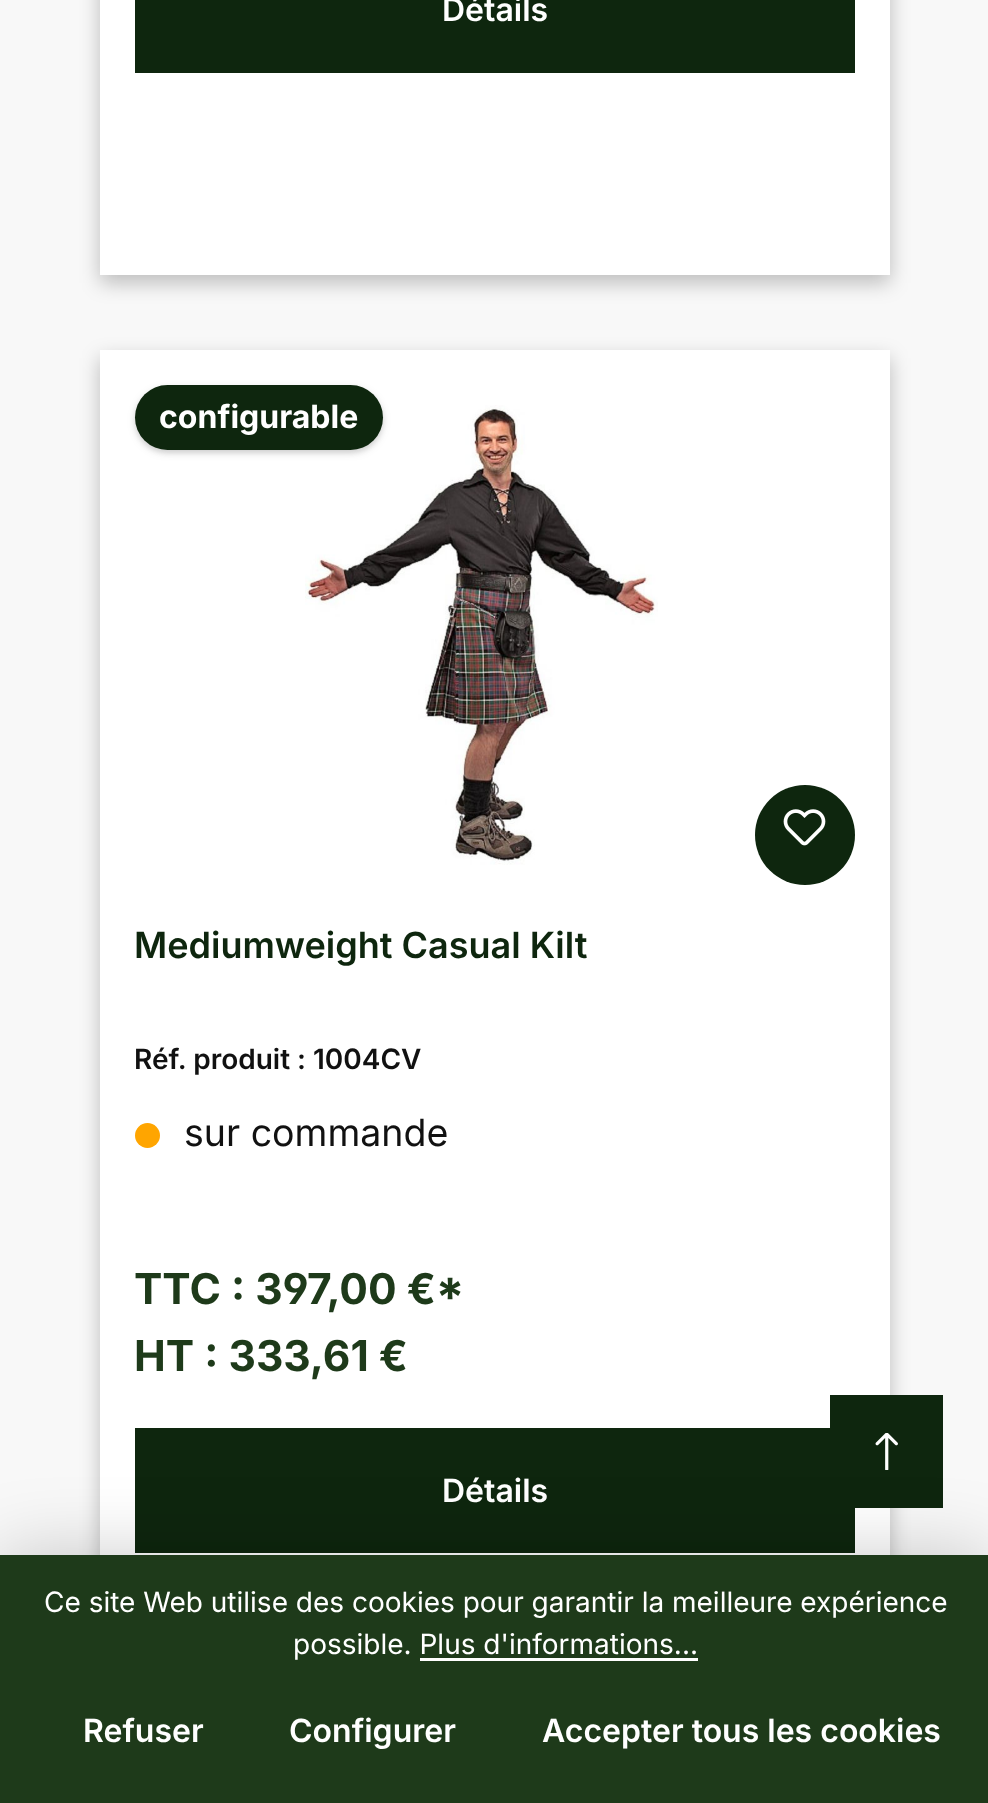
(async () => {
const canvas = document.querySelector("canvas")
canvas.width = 988
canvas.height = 1803
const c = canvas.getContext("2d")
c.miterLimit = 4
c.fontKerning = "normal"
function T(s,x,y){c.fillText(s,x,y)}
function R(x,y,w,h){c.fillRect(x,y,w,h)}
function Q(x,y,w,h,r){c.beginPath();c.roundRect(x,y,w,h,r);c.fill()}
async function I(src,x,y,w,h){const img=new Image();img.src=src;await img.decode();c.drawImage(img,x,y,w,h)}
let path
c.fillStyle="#f8f8f8"
R(0,0,988,1803)
c.fillStyle="#0000003d"
c.filter="blur(10px)"
c.beginPath()
c.rect(100,-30,790,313)
c.fill()
c.filter="none"
c.fillStyle="#fff"
R(100,0,790,275)
c.save()
c.beginPath()
c.rect(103,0,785,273)
c.clip()
path = new Path2D("M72 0h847v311h-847zm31-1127h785v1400h-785z")
c.clip(path,"evenodd")
c.fillStyle="#0000003d"
c.filter="blur(10px)"
c.beginPath()
c.rect(103,-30,785,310)
c.fill()
c.filter="none"
c.restore()
c.fillStyle="#0e260e"
R(135,0,720,73)
c.font="600 32px Inter"
c.fillStyle="#fff"
T("Détails",442,21)
c.fillStyle="#0000003d"
c.filter="blur(10px)"
c.beginPath()
c.rect(100,358,790,1407)
c.fill()
c.filter="none"
c.fillStyle="#fff"
R(100,350,790,1205)
c.save()
c.beginPath()
c.rect(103,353,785,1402)
c.clip()
path = new Path2D("M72 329h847v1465h-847zm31 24h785v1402h-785z")
c.clip(path,"evenodd")
c.fillStyle="#0000003d"
c.filter="blur(10px)"
c.beginPath()
c.rect(103,360,785,1403)
c.fill()
c.filter="none"
c.restore()
await I("1.png",305,405,353,460)
c.fillStyle="#0000001a"
c.filter="blur(2.5px)"
c.beginPath()
c.roundRect(135,388,248,65,32.5)
c.fill()
c.filter="none"
c.filter="blur(4px)"
c.beginPath()
c.roundRect(135,388,248,65,32.5)
c.fill()
c.filter="none"
c.fillStyle="#0e260e"
Q(135,385,248,65,32.5)
c.font="bold 32px Inter"
c.fillStyle="#fff"
T("configurable",159,428)
c.fillStyle="#0e260e"
c.beginPath()
c.arc(805,835,50,0,7)
c.fill()
await I("2.png",783,809,43,37)
c.font="600 36px Inter"
T("Mediumweight Casual Kilt",134,958)
c.font="600 28px Inter"
c.fillStyle="#111"
T("Réf. produit : 1004CV",134,1069)
c.fillStyle="#ffa500"
c.beginPath()
c.arc(147.5,1135.5,12.5,0,7)
c.fill()
c.font="37.5px Inter"
c.fillStyle="#111"
T("sur commande",184,1146)
c.font="bold 42.5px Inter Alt"
c.fillStyle="#1e3a1a"
T("TTC : 397,00 €*",134,1304)
c.font="bold 42.5px Inter"
T("HT : 333,61 €",134,1371)
c.fillStyle="#0e260e"
R(135,1428,720,125)
c.font="600 32px Inter"
c.fillStyle="#fff"
T("Détails",442,1502)
c.fillStyle="#0e260e"
R(830,1395,113,113)
await I("3.png",875,1433,23,37)
c.fillStyle="#00000033"
c.filter="blur(37.5px)"
c.beginPath()
c.rect(0,1555,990,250)
c.fill()
c.filter="none"
c.fillStyle="#1e3a1a"
R(0,1555,988,248)
c.font="28px Inter"
c.fillStyle="#fff"
T("Ce site Web utilise des cookies pour garantir la meilleure expérience",44,1612)
T("possible. Plus d'informations...",293,1654)
R(420,1658,278,3)
c.font="600 32px Inter"
T("Refuser",83,1742)
T("Configurer",289,1742)
T("Accepter tous les cookies",542,1742)
})()
